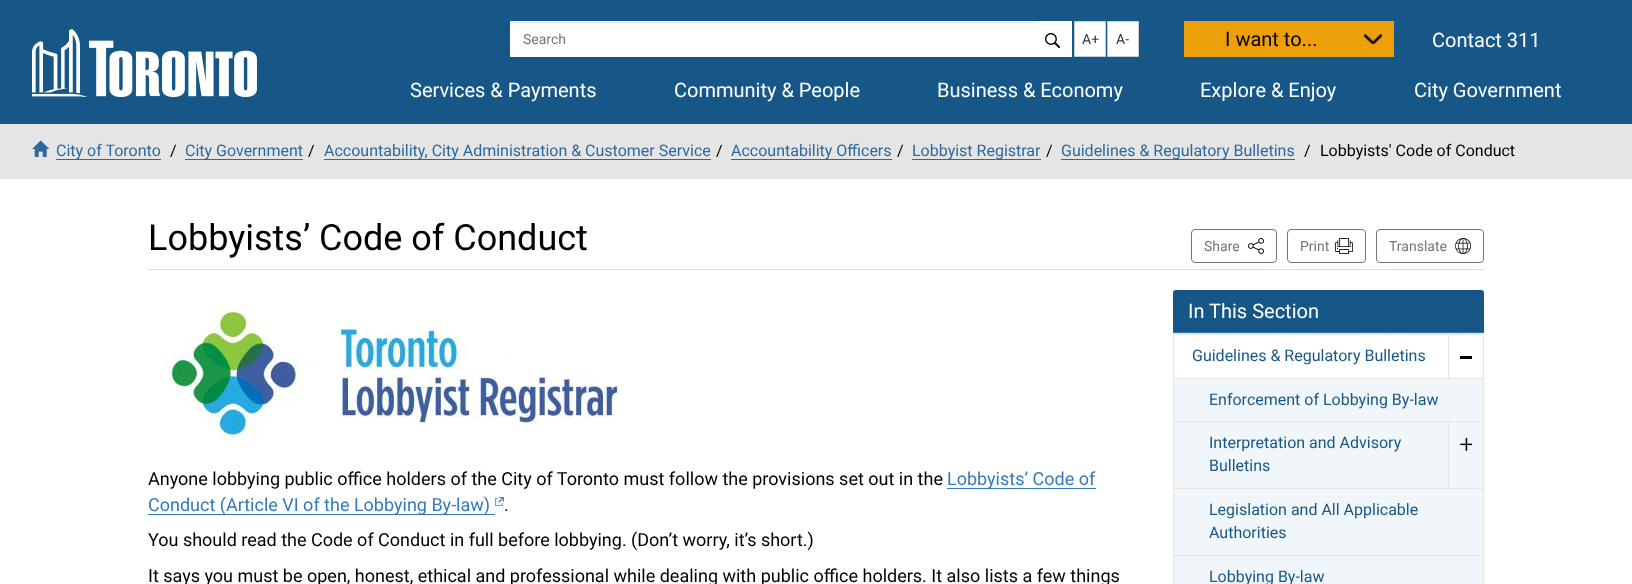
(async () => {
const canvas = document.querySelector("canvas")
canvas.width = 1632
canvas.height = 584
const c = canvas.getContext("2d")
c.miterLimit = 4
c.fontKerning = "normal"
function T(s,x,y){c.fillText(s,x,y)}
function R(x,y,w,h){c.fillRect(x,y,w,h)}
async function I(src,x,y,w,h){const img=new Image();img.src=src;await img.decode();c.drawImage(img,x,y,w,h)}
c.fillStyle="#fff"
R(0,0,1632,584)
c.fillStyle="#165788"
R(0,0,1632,124)
await I("1.png",32,29,225,68)
c.fillStyle="#fff"
R(510,21,562,36)
await I("2.png",1045,33,15,15)
c.fillStyle="#ececec"
R(511,22,524,1)
c.font="14px Roboto"
c.fillStyle="#767676"
T("Search",523,44)
c.fillStyle="#fff"
c.beginPath()
c.rect(1074.5,21.5,31,35)
c.fill()
c.strokeStyle="#ccc"
c.stroke()
c.fillStyle="#333"
T("A+",1082,44)
c.fillStyle="#fff"
c.beginPath()
c.rect(1107.5,21.5,31,35)
c.fill()
c.stroke()
c.fillStyle="#333"
T("A-",1116,44)
c.fillStyle="#ec9f09"
R(1184,21,210,36)
await I("3.png",1364,34,18,10)
c.font="20px Roboto"
c.fillStyle="#000"
T("I want to...",1225,46)
c.fillStyle="#fff"
T("Contact 311",1432,47)
T("Services & Payments",410,97)
T("Community & People",674,97)
T("Business & Economy",937,97)
T("Explore & Enjoy",1200,97)
T("City Government",1414,97)
c.fillStyle="#e5e5e5"
R(0,124,1632,55)
await I("4.png",32,140,18,17)
c.fillStyle="#2d699e"
R(56,159,105,1)
c.font="16px Roboto"
T("City of Toronto",56,156)
c.fillStyle="#000"
T("/",170,156)
c.fillStyle="#2d699e"
R(185,159,118,1)
T("City Government",185,156)
c.fillStyle="#000"
T("/",308,156)
c.fillStyle="#2d699e"
R(324,159,387,1)
T("Accountability, City Administration & Customer Service",324,156)
c.fillStyle="#000"
T("/",716,156)
c.fillStyle="#2d699e"
R(731,159,161,1)
T("Accountability Officers",731,156)
c.fillStyle="#000"
T("/",897,156)
c.fillStyle="#2d699e"
R(912,159,129,1)
T("Lobbyist Registrar",912,156)
c.fillStyle="#000"
T("/",1046,156)
c.fillStyle="#2d699e"
R(1061,159,234,1)
T("Guidelines & Regulatory Bulletins",1061,156)
c.fillStyle="#000"
T("/",1304,156)
T("Lobbyists' Code of Conduct",1320,156)
c.fillStyle="#ddd"
R(148,269,1336,1)
c.font="36px Roboto"
c.fillStyle="#000"
T("Lobbyists’ Code of Conduct",148,250)
await I("5.png",1248,238,16,16)
c.beginPath()
c.roundRect(1191.5,229.5,85,33,3.5)
c.strokeStyle="#6e787c"
c.stroke()
c.font="14px Roboto"
c.fillStyle="#6e787c"
T("Share",1204,251)
await I("6.png",1335,238,18,16)
c.beginPath()
c.roundRect(1287.5,229.5,78,33,3.5)
c.stroke()
T("Print",1300,251)
await I("7.png",1455,238,16,16)
c.beginPath()
c.roundRect(1376.5,229.5,107,33,3.5)
c.stroke()
T("Translate",1389,251)
await I("8.png",164,306,464,136)
c.font="18px Roboto"
c.fillStyle="#000"
T("Anyone lobbying public office holders of the City of Toronto must follow the provisions set out in the",148,485)
c.fillStyle="#337ab7"
R(947,488,149,1)
T("Lobbyists’ Code of",947,485)
R(148,514,347,1)
T("Conduct (Article VI of the Lobbying By-law)",148,511)
await I("9.png",495,497,9,9)
c.fillStyle="#000"
T(".",504,511)
T("You should read the Code of Conduct in full before lobbying. (Don’t worry, it’s short.)",148,546)
T("It says you must be open, honest, ethical and professional while dealing with public office holders. It also lists a few things",148,582)
c.fillStyle="#165788"
c.beginPath()
c.roundRect(1173,290,311,43,[3,3,0,0])
c.fill()
c.fillStyle="#337ab7"
R(1173,332,311,1)
c.font="20px Roboto"
c.fillStyle="#fff"
T("In This Section",1188,318)
c.strokeStyle="#e5e5e5"
c.strokeRect(1173.5,333.5,310,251)
c.fillStyle="#e5e5e5"
R(1174,334,309,1)
c.font="16px Roboto"
c.fillStyle="#165788"
T("Guidelines & Regulatory Bulletins",1192,361)
c.fillStyle="#000"
R(1460,356,12,3)
c.fillStyle="#e5e5e5"
R(1448,334,1,44)
c.fillStyle="#f1f6fa"
R(1174,379,309,205)
c.fillStyle="#e5e5e5"
R(1174,378,309,1)
c.fillStyle="#165788"
T("Enforcement of Lobbying By-law",1209,405)
c.fillStyle="#e5e5e5"
R(1174,421,309,1)
c.fillStyle="#165788"
T("Interpretation and Advisory",1209,448)
T("Bulletins",1209,471)
await I("10.png",1460,438,12,13)
c.fillStyle="#e5e5e5"
R(1448,421,1,67)
R(1174,488,309,1)
c.fillStyle="#165788"
T("Legislation and All Applicable",1209,515)
T("Authorities",1209,538)
c.fillStyle="#e5e5e5"
R(1174,555,309,1)
c.fillStyle="#165788"
T("Lobbying By-law",1209,582)
})()
